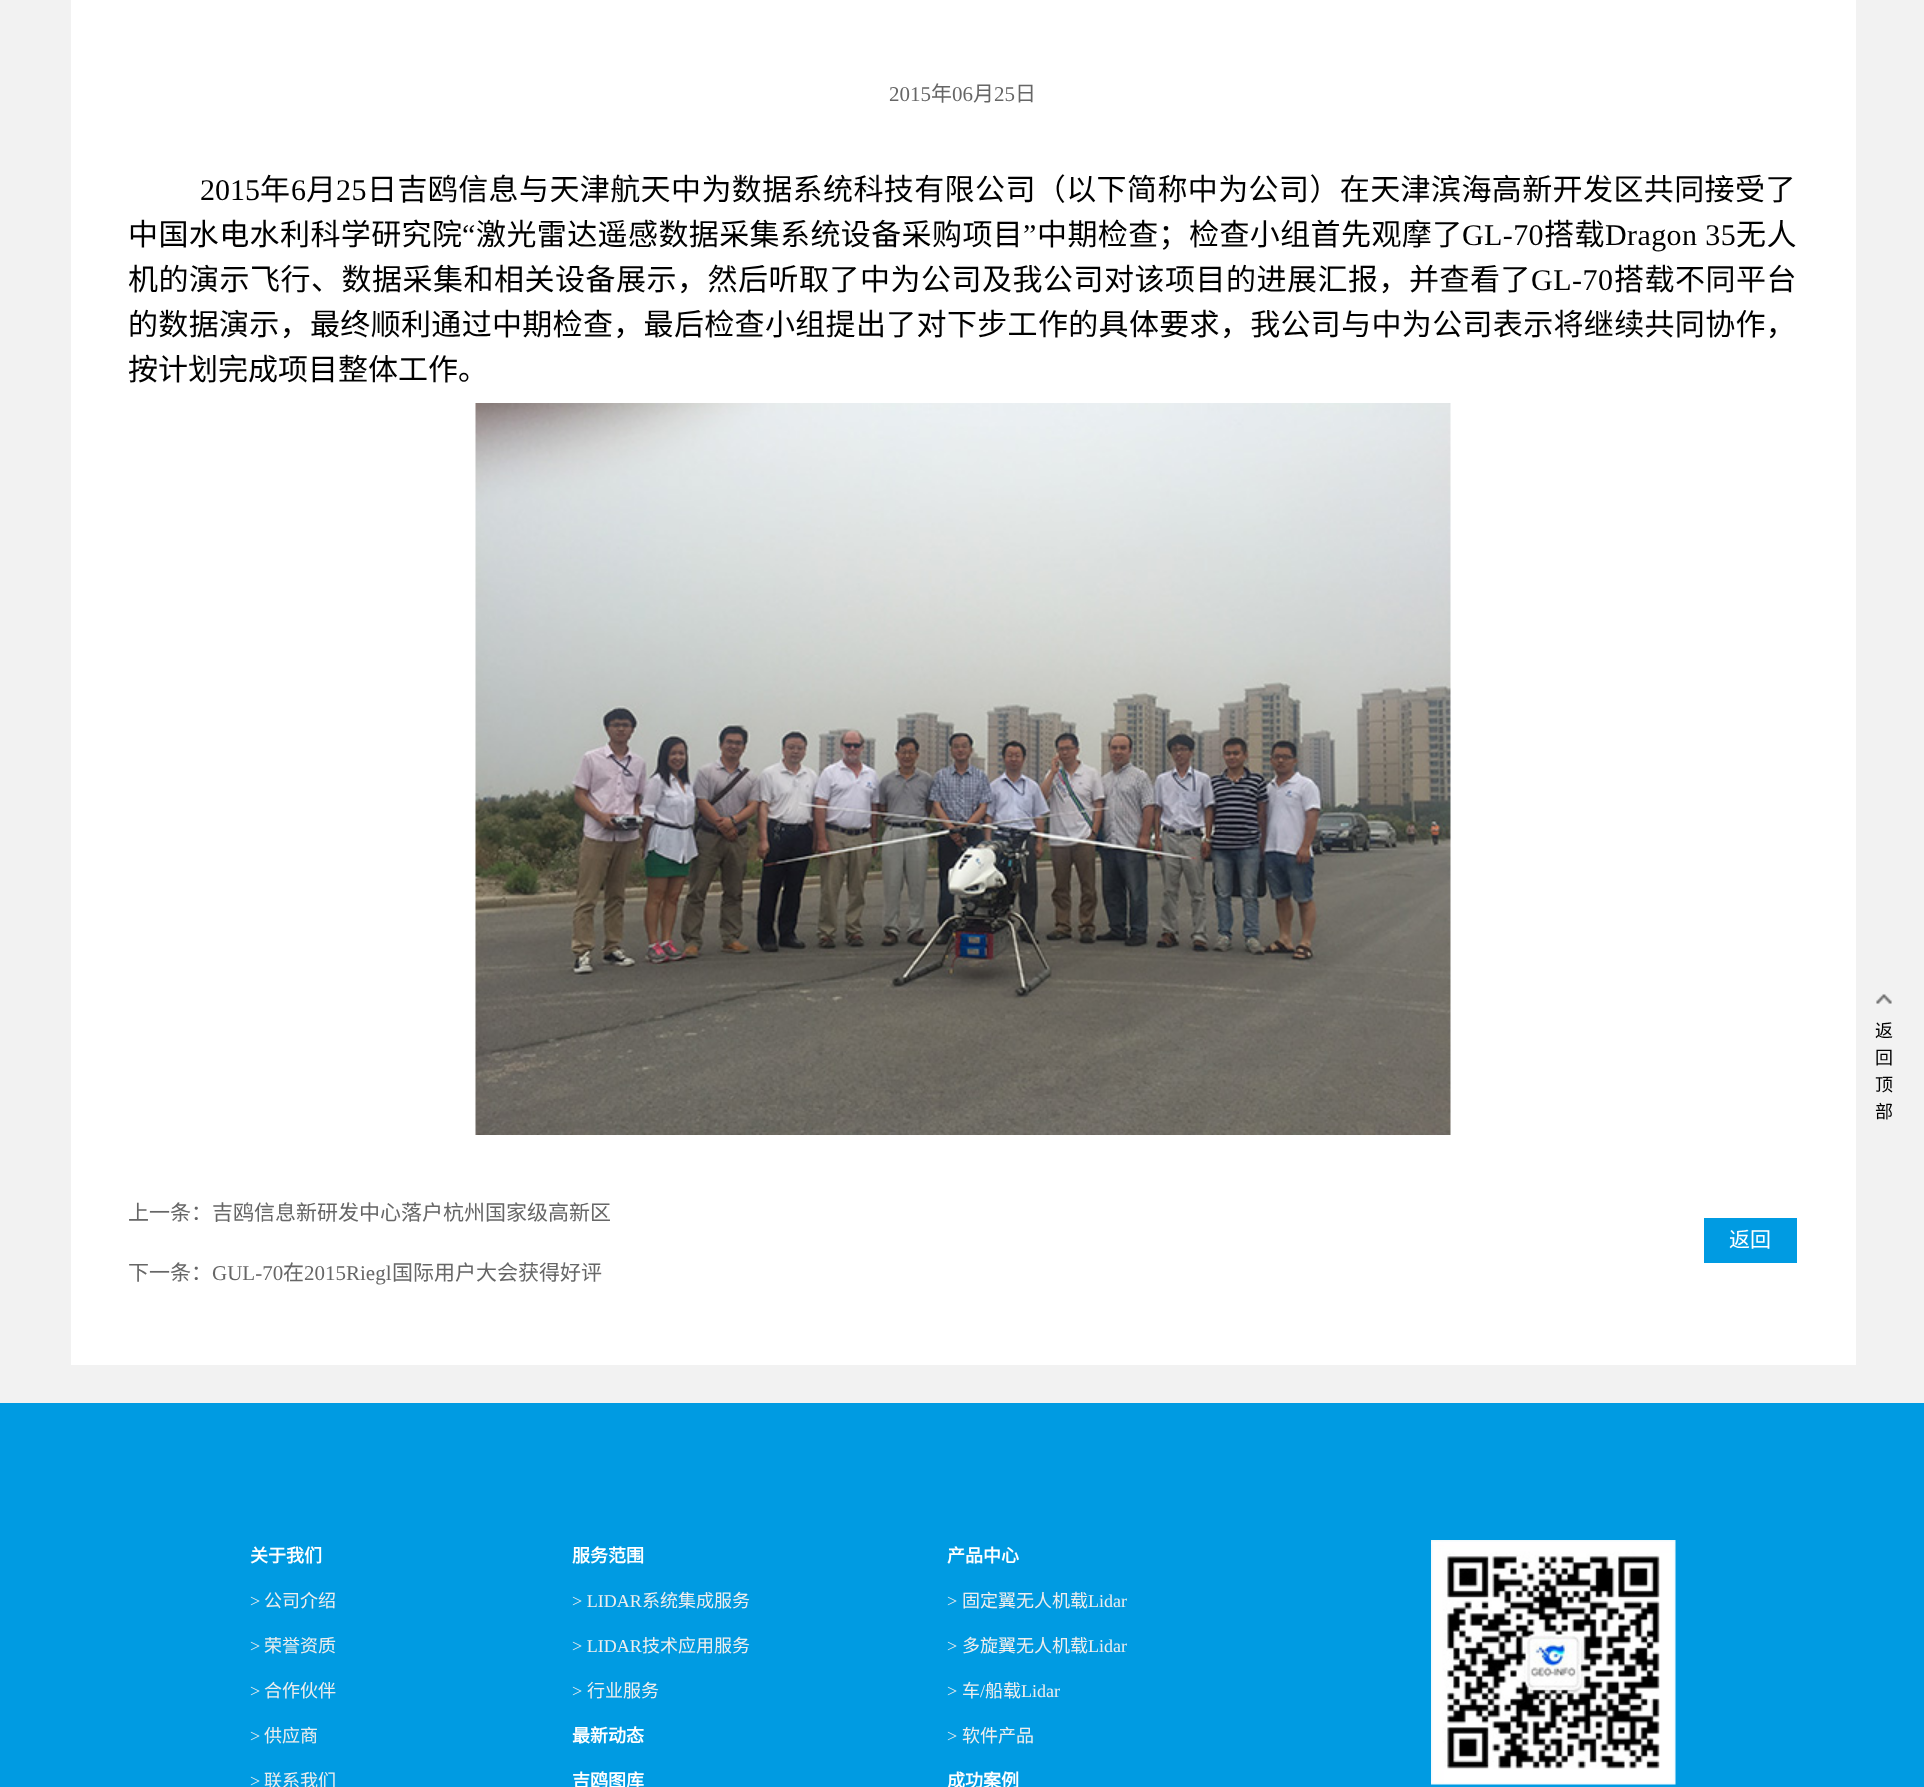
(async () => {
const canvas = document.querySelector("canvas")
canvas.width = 1924
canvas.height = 1787
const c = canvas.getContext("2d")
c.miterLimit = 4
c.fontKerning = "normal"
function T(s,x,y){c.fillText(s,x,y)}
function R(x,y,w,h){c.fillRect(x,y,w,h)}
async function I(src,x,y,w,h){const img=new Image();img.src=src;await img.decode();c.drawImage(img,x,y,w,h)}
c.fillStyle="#f2f2f2"
R(0,0,1924,1787)
c.fillStyle="#fff"
R(71,0,1785,1365)
c.font="21px Liberation Serif"
c.fillStyle="#666"
T("2015",889,101)
c.font="21px Noto Sans CJK SC"
T("年",931,101)
c.font="21px Liberation Serif"
T("06",952,101)
c.font="21px Noto Sans CJK SC"
T("月",973,101)
c.font="21px Liberation Serif"
T("25",994,101)
c.font="21px Noto Sans CJK SC"
T("日",1015,101)
c.font="30px Liberation Serif"
c.fillStyle="#000"
T("2015",200,200)
c.letterSpacing="0.4px"
c.font="30px Noto Sans CJK SC"
T("年",260,200)
c.font="30px Liberation Serif"
T("6",291,200)
c.font="30px Noto Sans CJK SC"
T("月",306,200)
c.font="30px Liberation Serif"
T("25",336,200)
c.font="30px Noto Sans CJK SC"
T("日吉鸥信息与天津航天中为数据系统科技有限公司（以下简称中为公司）在天津滨海高新开发区共同接受了",367,200)
T("中国水电水利科学研究院",128,245)
c.font="30px Liberation Serif"
T("“",462,245)
c.font="30px Noto Sans CJK SC"
T("激光雷达遥感数据采集系统设备采购项目",476,245)
c.font="30px Liberation Serif"
T("”",1023,245)
c.font="30px Noto Sans CJK SC"
T("中期检查；检查小组首先观摩了",1037,245)
c.font="30px Liberation Serif"
T("GL-70",1462,245)
c.font="30px Noto Sans CJK SC"
T("搭载",1544,245)
c.font="30px Liberation Serif"
T("Dragon 35",1605,245)
c.font="30px Noto Sans CJK SC"
T("无人",1736,245)
c.letterSpacing="0.5px"
T("机的演示飞行、数据采集和相关设备展示，然后听取了中为公司及我公司对该项目的进展汇报，并查看了",128,290)
c.font="30px Liberation Serif"
T("GL-70",1531,290)
c.font="30px Noto Sans CJK SC"
T("搭载不同平台",1614,290)
c.letterSpacing="0.33px"
T("的数据演示，最终顺利通过中期检查，最后检查小组提出了对下步工作的具体要求，我公司与中为公司表示将继续共同协作，",128,335)
c.letterSpacing="0px"
T("按计划完成项目整体工作。",128,380)
await I("1.png",475,403,976,732)
c.font="21px Noto Sans CJK SC"
c.fillStyle="#666"
T("上一条：吉鸥信息新研发中心落户杭州国家级高新区",128,1220)
T("下一条：",128,1280)
c.font="21px Liberation Serif"
T("GUL-70",212,1280)
c.font="21px Noto Sans CJK SC"
T("在",283,1280)
c.font="21px Liberation Serif"
T("2015Riegl",304,1280)
c.font="21px Noto Sans CJK SC"
T("国际用户大会获得好评",392,1280)
c.fillStyle="#009be2"
R(1704,1218,93,45)
c.fillStyle="#fff"
T("返回",1729,1247)
await I("2.png",1876,994,16,10)
c.font="18px Noto Sans CJK SC"
c.fillStyle="#000"
T("返",1875,1037)
T("回",1875,1064)
T("顶",1875,1091)
T("部",1875,1118)
c.fillStyle="#009be2"
R(0,1403,1924,384)
c.font="bold 18px Noto Sans CJK SC"
c.fillStyle="#fff"
T("关于我们",250,1562)
c.font="18px Liberation Serif"
c.fillStyle="#eee"
T(">",250,1607)
c.font="18px Noto Sans CJK SC"
T("公司介绍",264,1607)
c.font="18px Liberation Serif"
T(">",250,1652)
c.font="18px Noto Sans CJK SC"
T("荣誉资质",264,1652)
c.font="18px Liberation Serif"
T(">",250,1697)
c.font="18px Noto Sans CJK SC"
T("合作伙伴",264,1697)
c.font="18px Liberation Serif"
T(">",250,1742)
c.font="18px Noto Sans CJK SC"
T("供应商",264,1742)
c.font="18px Liberation Serif"
T(">",250,1787)
c.font="18px Noto Sans CJK SC"
T("联系我们",264,1787)
c.font="bold 18px Noto Sans CJK SC"
c.fillStyle="#fff"
T("服务范围",572,1562)
c.font="18px Liberation Serif"
c.fillStyle="#eee"
T("> LIDAR",572,1607)
c.font="18px Noto Sans CJK SC"
T("系统集成服务",642,1607)
c.font="18px Liberation Serif"
T("> LIDAR",572,1652)
c.font="18px Noto Sans CJK SC"
T("技术应用服务",642,1652)
c.font="18px Liberation Serif"
T(">",572,1697)
c.font="18px Noto Sans CJK SC"
T("行业服务",587,1697)
c.font="bold 18px Noto Sans CJK SC"
c.fillStyle="#fff"
T("最新动态",572,1742)
T("吉鸥图库",572,1787)
T("产品中心",947,1562)
c.font="18px Liberation Serif"
c.fillStyle="#eee"
T(">",947,1607)
c.font="18px Noto Sans CJK SC"
T("固定翼无人机载",962,1607)
c.font="18px Liberation Serif"
T("Lidar",1088,1607)
T(">",947,1652)
c.font="18px Noto Sans CJK SC"
T("多旋翼无人机载",962,1652)
c.font="18px Liberation Serif"
T("Lidar",1088,1652)
T(">",947,1697)
c.font="18px Noto Sans CJK SC"
T("车",962,1697)
c.font="18px Liberation Serif"
T("/",980,1697)
c.font="18px Noto Sans CJK SC"
T("船载",985,1697)
c.font="18px Liberation Serif"
T("Lidar",1021,1697)
T(">",947,1742)
c.font="18px Noto Sans CJK SC"
T("软件产品",962,1742)
c.font="bold 18px Noto Sans CJK SC"
c.fillStyle="#fff"
T("成功案例",947,1787)
await I("3.png",1431,1540,245,245)
})()
